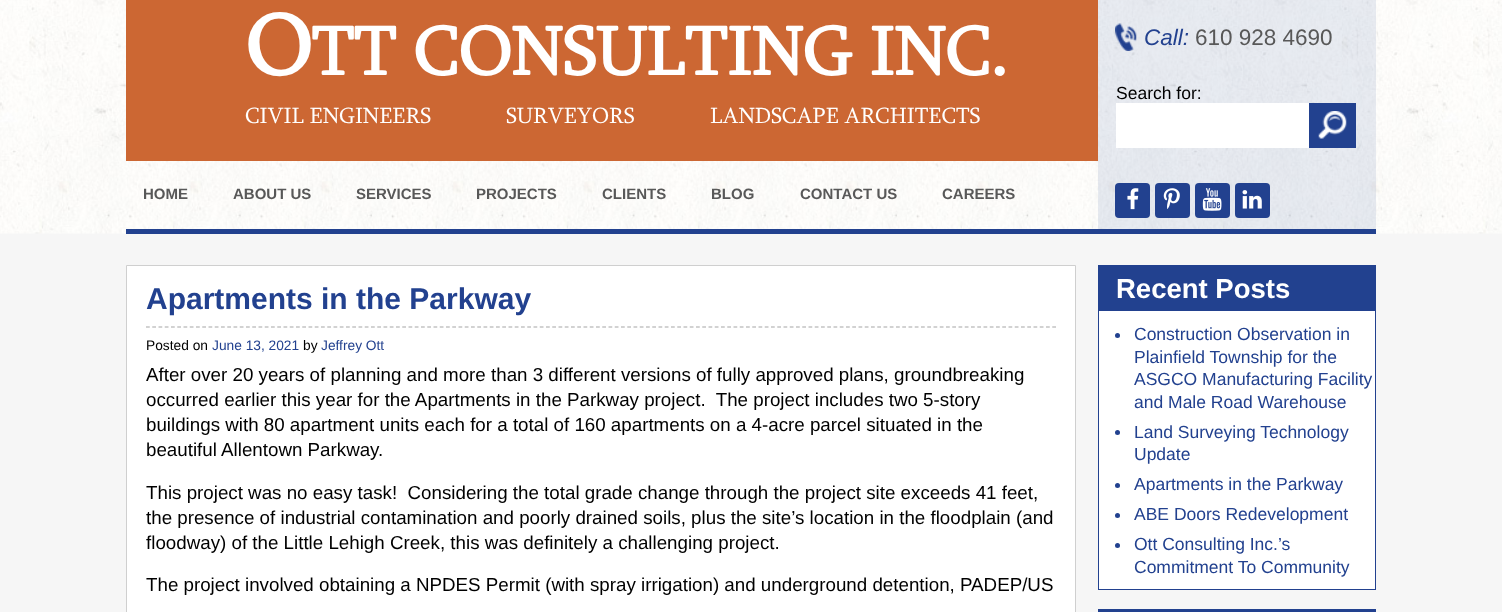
(async () => {
const canvas = document.querySelector("canvas")
canvas.width = 1502
canvas.height = 612
const c = canvas.getContext("2d")
c.miterLimit = 4
c.fontKerning = "normal"
function T(s,x,y){c.fillText(s,x,y)}
function R(x,y,w,h){c.fillRect(x,y,w,h)}
function Q(x,y,w,h,r){c.beginPath();c.roundRect(x,y,w,h,r);c.fill()}
async function I(src,x,y,w,h){const img=new Image();img.src=src;await img.decode();c.drawImage(img,x,y,w,h)}
let path
c.fillStyle="#f6f6f6"
R(0,0,1502,612)
await I("1.png",0,0,1502,234)
c.fillStyle="#22418f"
R(126,229,1250,5)
c.fillStyle="#cc6733"
R(126,0,972,161)
c.font="bold 88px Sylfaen"
c.fillStyle="#fff"
T("O",245,75)
c.font="bold 70px Sylfaen"
T("TT CONSULTING INC.",311,75)
c.font="22.5px Sylfaen"
T("CIVIL ENGINEERS",245,123)
T("SURVEYORS",506,123)
T("LANDSCAPE ARCHITECTS",710,123)
c.fillStyle="#22418f1a"
R(1098,0,278,229)
await I("2.png",1115,23,22,28)
c.font="italic 22.5px Liberation Sans"
c.fillStyle="#22418f"
T("Call:",1144,45)
c.font="22.5px Liberation Sans"
c.fillStyle="#585858"
T("610 928 4690",1195,45)
c.font="17.5px Liberation Sans"
c.fillStyle="#000"
T("Search for:",1116,99)
c.fillStyle="#fff"
R(1116,103,193,45)
c.fillStyle="#22418f"
R(1309,103,47,45)
await I("3.png",1318,111,29,28)
Q(1115,183,35,35,4)
await I("4.png",1127,188,12,22)
Q(1155,183,35,35,4)
await I("5.png",1163,188,17,21)
Q(1195,183,35,35,4)
await I("6.png",1202,188,20,23)
Q(1235,183,35,35,4)
await I("7.png",1242,190,20,19)
c.font="bold 15px Liberation Sans"
c.fillStyle="#585858"
T("HOME",143,199)
T("ABOUT US",233,199)
T("SERVICES",356,199)
T("PROJECTS",476,199)
T("CLIENTS",602,199)
T("BLOG",711,199)
T("CONTACT US",800,199)
T("CAREERS",942,199)
c.fillStyle="#fff"
c.beginPath()
c.rect(126.5,265.5,949,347)
c.fill()
c.strokeStyle="#cfcfcf"
c.stroke()
path = new Path2D("M146 327h910")
c.strokeStyle="#a6a6a6"
c.lineWidth=1.2
c.setLineDash([3.75,2.5])
c.stroke(path)
c.font="bold 30px Liberation Sans"
c.fillStyle="#22418f"
T("Apartments in the Parkway",146,309)
c.font="13.75px Liberation Sans"
c.fillStyle="#000"
T("Posted on",146,350)
c.fillStyle="#22418f"
T("June 13, 2021",212,350)
c.fillStyle="#000"
T("by",303,350)
c.fillStyle="#22418f"
T("Jeffrey Ott",321,350)
c.font="18.75px Liberation Sans"
c.fillStyle="#000"
T("After over 20 years of planning and more than 3 different versions of fully approved plans, groundbreaking",146,381)
T("occurred earlier this year for the Apartments in the Parkway project.  The project includes two 5-story",146,406)
T("buildings with 80 apartment units each for a total of 160 apartments on a 4-acre parcel situated in the",146,431)
T("beautiful Allentown Parkway.",146,456)
T("This project was no easy task!  Considering the total grade change through the project site exceeds 41 feet,",146,499)
T("the presence of industrial contamination and poorly drained soils, plus the site’s location in the floodplain (and",146,524)
T("floodway) of the Little Lehigh Creek, this was definitely a challenging project.",146,549)
T("The project involved obtaining a NPDES Permit (with spray irrigation) and underground detention, PADEP/US",146,591)
c.fillStyle="#fff"
R(1099,311,276,278)
c.strokeStyle="#22418f"
c.lineWidth=1
c.setLineDash([])
c.strokeRect(1098.5,265.5,277,324)
c.fillStyle="#22418f"
R(1099,266,276,45)
c.font="bold 27.5px Liberation Sans"
c.fillStyle="#fff"
T("Recent Posts",1116,298)
c.fillStyle="#22418f"
c.beginPath()
c.arc(1117.5,335.5,2.5,0,7)
c.fill()
c.font="17.5px Liberation Sans"
T("Construction Observation in",1134,340)
T("Plainfield Township for the",1134,363)
T("ASGCO Manufacturing Facility",1134,385)
T("and Male Road Warehouse",1134,408)
c.beginPath()
c.arc(1117.5,432.5,2.5,0,7)
c.fill()
T("Land Surveying Technology",1134,438)
T("Update",1134,460)
c.beginPath()
c.arc(1117.5,485.5,2.5,0,7)
c.fill()
T("Apartments in the Parkway",1134,490)
c.beginPath()
c.arc(1117.5,515.5,2.5,0,7)
c.fill()
T("ABE Doors Redevelopment",1134,520)
c.beginPath()
c.arc(1117.5,545.5,2.5,0,7)
c.fill()
T("Ott Consulting Inc.’s",1134,550)
T("Commitment To Community",1134,573)
c.strokeRect(1098.5,609.5,277,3)
R(1099,610,276,2)
})()
